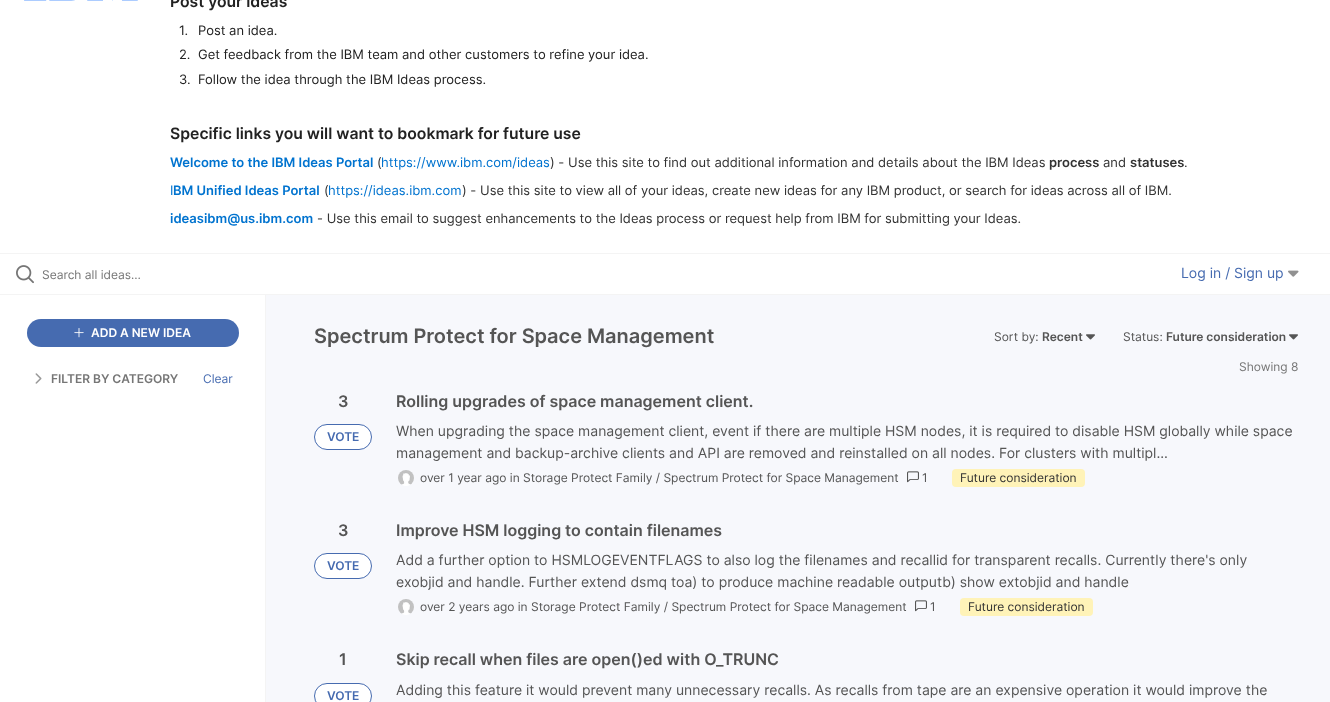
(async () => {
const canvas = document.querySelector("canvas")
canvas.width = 1330
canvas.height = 702
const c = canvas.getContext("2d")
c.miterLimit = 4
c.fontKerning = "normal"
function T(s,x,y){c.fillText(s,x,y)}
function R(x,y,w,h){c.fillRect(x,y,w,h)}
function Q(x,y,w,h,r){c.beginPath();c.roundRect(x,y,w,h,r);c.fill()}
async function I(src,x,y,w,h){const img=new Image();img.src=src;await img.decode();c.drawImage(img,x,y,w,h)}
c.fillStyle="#f7f8fc"
R(0,0,1330,702)
c.fillStyle="#fff"
R(0,0,1330,253)
c.fillStyle="#f4f4f4"
R(0,253,1330,1)
await I("1.png",24,0,114,1)
c.font="600 15.75px Inter"
c.fillStyle="#222"
T("Post your ideas",170,7)
c.font="13px Inter"
T("1.",179,35)
T("Post an idea.",198,35)
T("2.",179,59)
T("Get feedback from the IBM team and other customers to refine your idea.",198,59)
T("3.",179,84)
T("Follow the idea through the IBM Ideas process.",198,84)
c.font="600 15.75px Inter"
T("Specific links you will want to bookmark for future use",170,139)
c.font="600 13px Inter"
c.fillStyle="#0073cf"
T("Welcome to the IBM Ideas Portal",170,167)
c.font="13px Inter"
c.fillStyle="#333"
T("(",377,167)
c.fillStyle="#0073cf"
T("https://www.ibm.com/ideas",381,167)
c.fillStyle="#333"
T(") - Use this site to find out additional information and details about the IBM Ideas",550,167)
c.font="600 13px Inter"
T("process",1049,167)
c.font="13px Inter"
T("and",1103,167)
c.font="600 13px Inter"
T("statuses",1130,167)
c.font="13px Inter"
T(".",1184,167)
c.fillStyle="#0073cf"
T("I",170,195)
c.font="600 13px Inter"
T("BM Unified Ideas Portal",173,195)
c.font="13px Inter"
c.fillStyle="#333"
T("(",324,195)
c.fillStyle="#0073cf"
T("https://ideas.ibm.com",328,195)
c.fillStyle="#333"
T(") - Use this site to view all of your ideas, create new ideas for any IBM product, or search for ideas across all of IBM.",462,195)
c.font="600 13px Inter"
c.fillStyle="#0073cf"
T("ideasibm@us.ibm.com",170,223)
c.font="13px Inter"
c.fillStyle="#333"
T("- Use this email to suggest enhancements to the Ideas process or request help from IBM for submitting your Ideas.",317,223)
c.fillStyle="#fff"
R(0,254,1330,40)
c.fillStyle="#f4f4f4"
R(0,294,1330,1)
await I("2.png",16,265,18,19)
c.font="12px Inter"
c.fillStyle="#767676"
T("Search all ideas…",42,279)
c.font="14px Inter"
c.fillStyle="#466bb0"
T("Log in / Sign up",1181,278)
await I("3.png",1288,270,11,7)
c.fillStyle="#fff"
R(0,295,265,407)
c.fillStyle="#f4f4f4"
R(265,295,1,407)
c.fillStyle="#466bb0"
Q(27,319,212,28,14)
await I("4.png",74,328,10,10)
c.font="600 12px Inter"
c.fillStyle="#fff"
T("ADD A NEW IDEA",91,337)
await I("5.png",35,373,7,11)
c.fillStyle="#767676"
T("FILTER BY CATEGORY",51,383)
c.font="12px Inter"
c.fillStyle="#466bb0"
T("Clear",203,383)
c.font="600 20px Inter"
c.fillStyle="#555"
T("Spectrum Protect for Space Management",314,343)
c.font="12px Inter"
T("Sort by:",994,341)
c.font="600 12px Inter"
T("Recent",1042,341)
await I("6.png",1086,334,9,6)
c.font="12px Inter"
T("Status:",1123,341)
c.font="600 12px Inter"
T("Future consideration",1166,341)
await I("6.png",1289,334,9,6)
c.font="12px Inter"
c.fillStyle="#767676"
T("Showing 8",1239,371)
c.font="600 16px Inter"
c.fillStyle="#555"
T("3",338,407)
c.fillStyle="#fff"
c.beginPath()
c.roundRect(314.5,424.5,57,25,12.5)
c.fill()
c.strokeStyle="#466bb0"
c.stroke()
c.font="600 12px Inter"
c.fillStyle="#466bb0"
T("VOTE",327,441)
c.font="600 16px Inter"
c.fillStyle="#555"
T("Rolling upgrades of space management client.",396,407)
c.font="14px Inter"
T("When upgrading the space management client, event if there are multiple HSM nodes, it is required to disable HSM globally while space",396,436)
T("management and backup-archive clients and API are removed and reinstalled on all nodes. For clusters with multipl...",396,458)
await I("7.png",398,470,16,16)
c.font="12px Inter"
T("over 1 year ago in Storage Protect Family / Spectrum Protect for Space Management",420,482)
await I("8.png",907,471,12,12)
T("1",922,482)
c.fillStyle="#fff3b8"
Q(952,469,133,18,4)
c.fillStyle="#333"
T("Future consideration",960,482)
c.font="600 16px Inter"
c.fillStyle="#555"
T("3",338,536)
c.fillStyle="#fff"
c.beginPath()
c.roundRect(314.5,553.5,57,25,12.5)
c.fill()
c.stroke()
c.font="600 12px Inter"
c.fillStyle="#466bb0"
T("VOTE",327,570)
c.font="600 16px Inter"
c.fillStyle="#555"
T("Improve HSM logging to contain filenames",396,536)
c.font="14px Inter"
T("Add a further option to HSMLOGEVENTFLAGS to also log the filenames and recallid for transparent recalls. Currently there's only",396,565)
T("exobjid and handle. Further extend dsmq toa) to produce machine readable outputb) show extobjid and handle",396,587)
await I("7.png",398,599,16,16)
c.font="12px Inter"
T("over 2 years ago in Storage Protect Family / Spectrum Protect for Space Management",420,611)
await I("8.png",915,600,12,12)
T("1",930,611)
c.fillStyle="#fff3b8"
Q(960,598,133,18,4)
c.fillStyle="#333"
T("Future consideration",968,611)
c.font="600 16px Inter"
c.fillStyle="#555"
T("1",339,665)
c.fillStyle="#fff"
c.beginPath()
c.roundRect(314.5,683.5,57,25,12.5)
c.fill()
c.stroke()
c.font="600 12px Inter"
c.fillStyle="#466bb0"
T("VOTE",327,700)
c.font="600 16px Inter"
c.fillStyle="#555"
T("Skip recall when files are open()ed with O_TRUNC",396,665)
c.font="14px Inter"
T("Adding this feature it would prevent many unnecessary recalls. As recalls from tape are an expensive operation it would improve the",396,695)
})()
